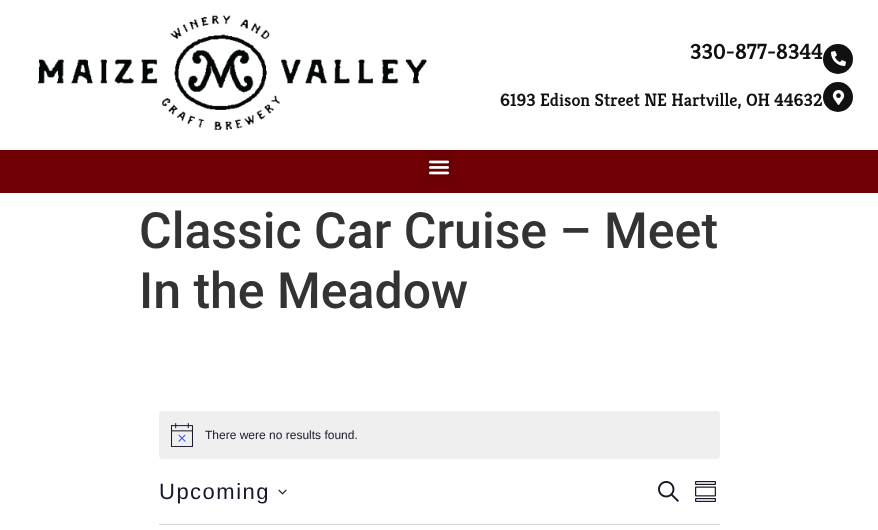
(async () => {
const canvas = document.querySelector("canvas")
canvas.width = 878
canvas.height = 530
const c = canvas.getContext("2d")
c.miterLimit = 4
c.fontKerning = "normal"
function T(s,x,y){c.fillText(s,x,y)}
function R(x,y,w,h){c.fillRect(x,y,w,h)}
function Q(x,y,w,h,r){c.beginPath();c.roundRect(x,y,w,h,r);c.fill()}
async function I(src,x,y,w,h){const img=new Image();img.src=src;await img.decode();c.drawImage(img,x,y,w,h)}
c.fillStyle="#fff"
R(0,0,878,530)
await I("1.png",38,15,389,115)
c.font="600 22px Kreon"
c.fillStyle="#111"
T("330-877-8344",690,59)
c.beginPath()
c.arc(838,59,15,0,7)
c.fill()
await I("2.png",831,51,15,15)
c.font="600 18px Kreon"
T("6193 Edison Street NE Hartville, OH 44632",500,106)
c.beginPath()
c.arc(838,97,15,0,7)
c.fill()
await I("3.png",832,90,13,15)
c.fillStyle="#710004"
R(0,150,878,43)
c.fillStyle="#6b0004"
Q(423,150,33,33,3)
await I("4.png",428,160,22,15)
c.font="500 50px Roboto"
c.fillStyle="#333"
T("Classic Car Cruise – Meet",139,248)
T("In the Meadow",139,308)
c.fillStyle="#efeff0"
Q(159,411,561,48,4)
await I("5.png",171,423,22,24)
c.font="12px Liberation Sans"
c.fillStyle="#141827"
T("There were no results found.",205,439)
c.letterSpacing="1.5px"
c.font="22px Liberation Sans"
T("Upcoming",159,499)
await I("6.png",278,489,9,6)
await I("7.png",658,481,21,21)
await I("8.png",695,481,21,21)
c.fillStyle="#d5d5d5"
R(159,524,561,1)
})()
